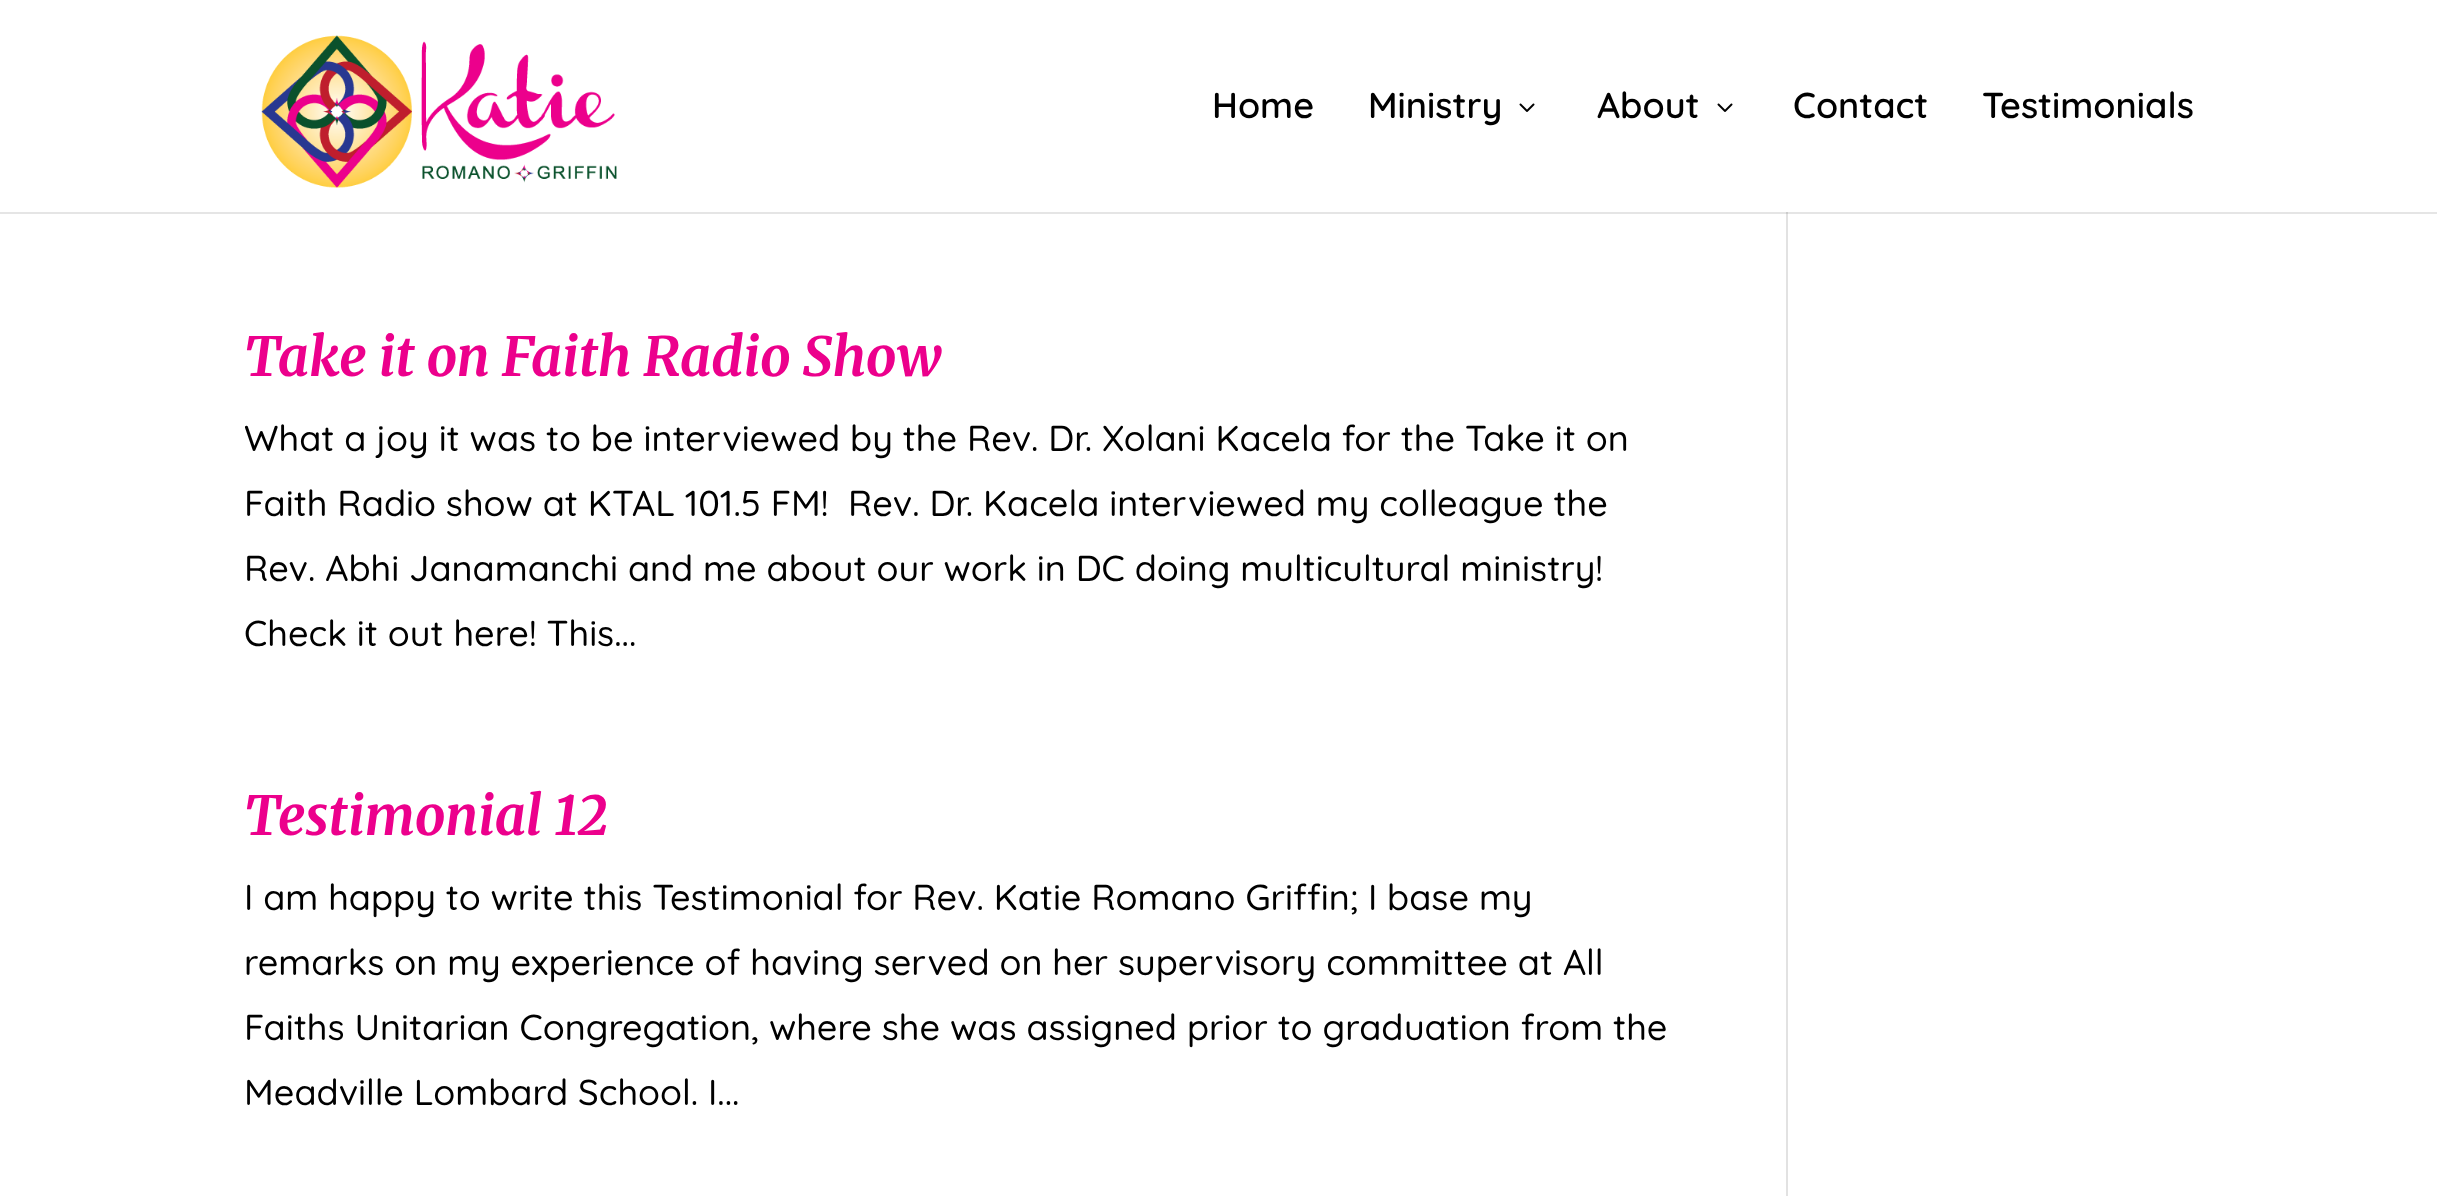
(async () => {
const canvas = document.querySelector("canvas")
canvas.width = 2437
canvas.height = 1196
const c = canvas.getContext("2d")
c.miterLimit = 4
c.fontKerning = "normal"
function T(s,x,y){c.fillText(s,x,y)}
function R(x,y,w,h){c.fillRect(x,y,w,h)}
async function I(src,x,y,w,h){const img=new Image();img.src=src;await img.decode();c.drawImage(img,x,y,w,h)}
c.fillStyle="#fff"
R(0,0,2437,1196)
c.fillStyle="#e2e2e2"
R(1786,212,2,984)
c.fillStyle="#0000001a"
R(0,212,2437,2)
await I("1.png",261,35,356,153)
c.font="600 36px Quicksand"
c.fillStyle="#000"
T("Home",1212,118)
T("Ministry",1368,118)
await I("2.png",1519,103,16,9)
T("About",1597,118)
await I("2.png",1717,103,16,9)
T("Contact",1793,118)
T("Testimonials",1982,118)
c.font="italic 300 54px Merriweather"
c.fillStyle="#ec008c"
T("Take it on Faith Radio Show",244,376)
c.font="300 36px Quicksand"
c.fillStyle="#000"
T("What a joy it was to be interviewed by the Rev. Dr. Xolani Kacela for the Take it on",244,451)
T("Faith Radio show at KTAL 101.5 FM!  Rev. Dr. Kacela interviewed my colleague the",244,516)
T("Rev. Abhi Janamanchi and me about our work in DC doing multicultural ministry!",244,581)
T("Check it out here! This...",244,646)
c.font="italic 300 54px Merriweather"
c.fillStyle="#ec008c"
T("Testimonial 12",244,835)
c.font="300 36px Quicksand"
c.fillStyle="#000"
T("I am happy to write this Testimonial for Rev. Katie Romano Griffin; I base my",244,910)
T("remarks on my experience of having served on her supervisory committee at All",244,975)
T("Faiths Unitarian Congregation, where she was assigned prior to graduation from the",244,1040)
T("Meadville Lombard School. I...",244,1105)
})()
